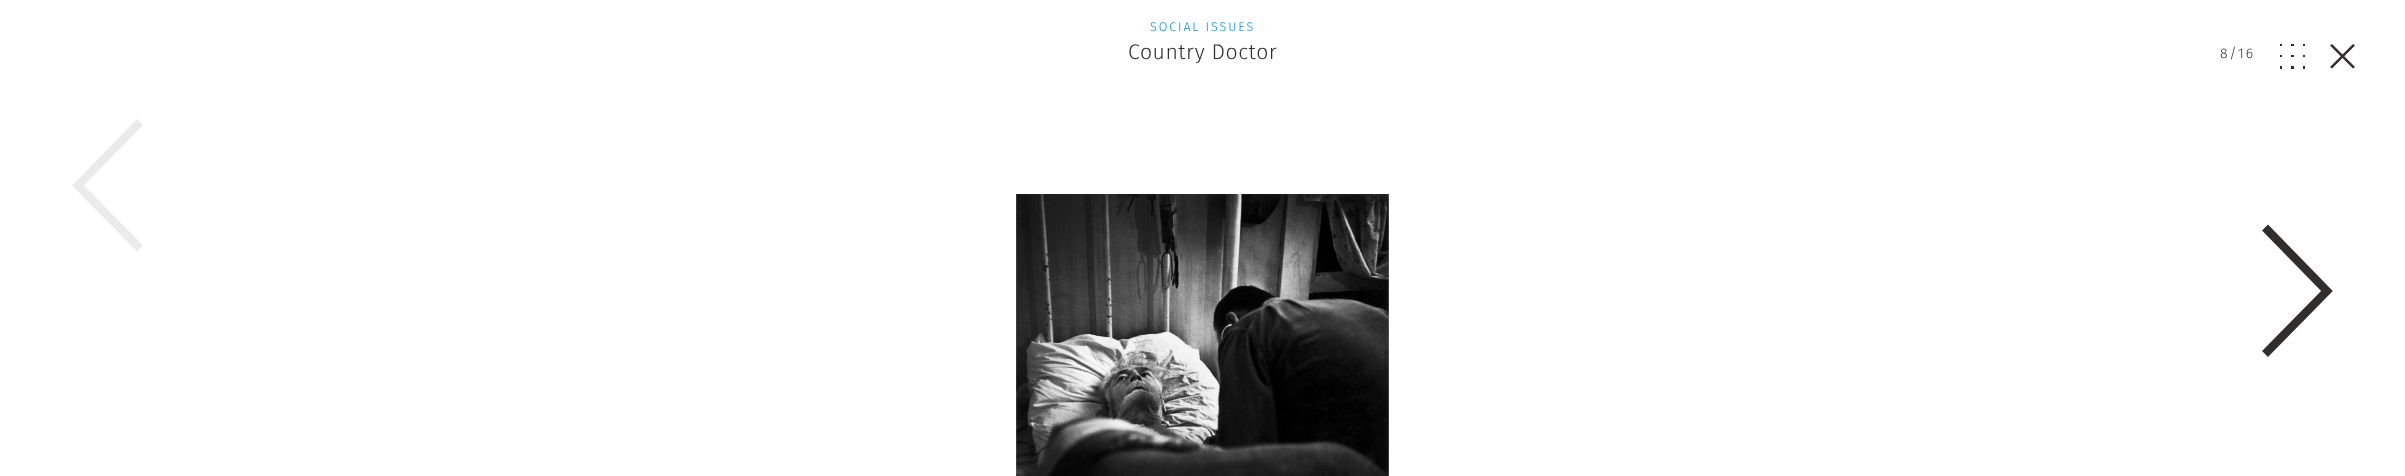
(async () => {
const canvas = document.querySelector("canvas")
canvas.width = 2405
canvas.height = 476
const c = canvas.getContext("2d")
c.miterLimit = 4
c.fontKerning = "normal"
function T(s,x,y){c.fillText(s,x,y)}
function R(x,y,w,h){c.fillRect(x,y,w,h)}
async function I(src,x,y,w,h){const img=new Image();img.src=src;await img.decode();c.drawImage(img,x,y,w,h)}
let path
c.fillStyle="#fff"
R(0,0,2405,476)
c.letterSpacing="1.9px"
c.font="300 12.5px Fira Sans"
c.fillStyle="#008cca"
T("SOCIAL ISSUES",1150,31)
c.letterSpacing="0.5px"
c.font="300 21.25px Fira Sans"
c.fillStyle="#302d2d"
T("Country Doctor",1128,59)
c.letterSpacing="2px"
c.font="300 14px Fira Sans"
T("8/",2220,58)
T("16",2238,58)
await I("1.png",2280,44,25,25)
path = new Path2D("M2332 44l23 23l-2 1.5l-23-23z")
c.fill(path)
path = new Path2D("M2330 67l23-23l2 1.5l-23 23z")
c.fill(path)
path = new Path2D("M140 122l-62 63.5l62 63")
c.strokeStyle="#ebebeb"
c.lineWidth=8.3
c.stroke(path)
await I("2.png",1016,194,373,282)
path = new Path2D("M2265 354l62-63l-62-63.5")
c.strokeStyle="#302d2d"
c.stroke(path)
})()
